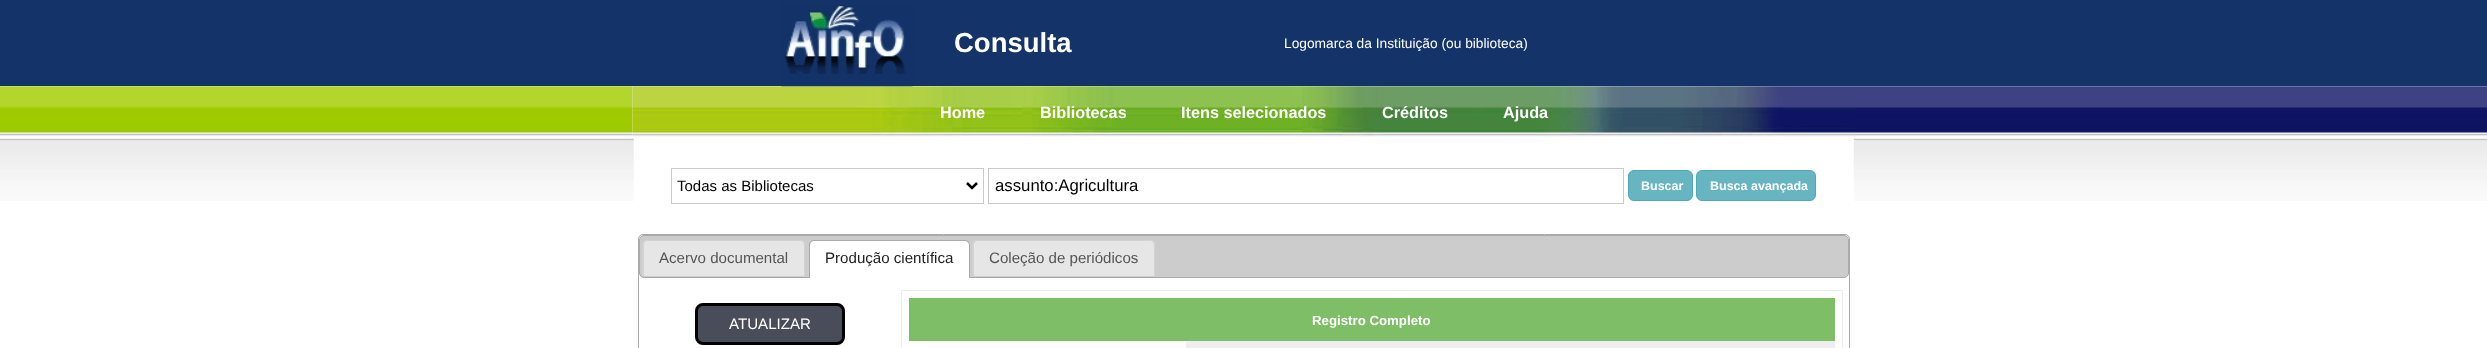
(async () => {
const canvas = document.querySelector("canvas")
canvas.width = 2487
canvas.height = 348
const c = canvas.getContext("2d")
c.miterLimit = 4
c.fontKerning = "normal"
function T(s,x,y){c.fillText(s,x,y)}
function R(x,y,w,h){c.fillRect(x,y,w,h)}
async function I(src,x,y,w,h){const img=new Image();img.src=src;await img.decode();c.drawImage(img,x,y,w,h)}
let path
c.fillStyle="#fff"
R(0,0,2487,348)
c.fillStyle="#143369"
R(0,0,2487,86)
await I("2.png",0,86,633,51)
await I("3.png",632,86,1223,51)
await I("1.png",781,5,132,82)
c.font="bold 27.5px Liberation Sans"
c.fillStyle="#fff"
T("Consulta",954,52)
c.font="13.75px Liberation Sans"
T("Logomarca da Instituição (ou biblioteca)",1284,48)
c.font="bold 16.25px Liberation Sans"
T("Home",940,118)
T("Bibliotecas",1040,118)
T("Itens selecionados",1181,118)
T("Créditos",1382,118)
T("Ajuda",1503,118)
await I("4.png",1855,86,632,51)
await I("5.png",0,138,634,63)
c.strokeStyle="#cbcaca"
c.strokeRect(671.5,168.5,312,35)
path = new Path2D("M967 183l5 5l5-5")
c.strokeStyle="#000"
c.lineWidth=2.5
c.stroke(path)
c.font="15px Liberation Sans"
c.fillStyle="#000"
T("Todas as Bibliotecas",677,191)
c.strokeStyle="#cbcaca"
c.lineWidth=1
c.strokeRect(988.5,168.5,635,35)
c.font="16.75px Liberation Sans"
T("assunto:Agricultura",995,191)
c.fillStyle="#66b5c1"
c.beginPath()
c.roundRect(1628.5,170.5,64,30,5.5)
c.fill()
c.strokeStyle="#4fa8b6"
c.stroke()
c.font="bold 12.5px Liberation Sans"
c.fillStyle="#fff"
T("Buscar",1641,190)
c.fillStyle="#66b5c1"
c.beginPath()
c.roundRect(1696.5,170.5,119,30,5.5)
c.fill()
c.stroke()
c.fillStyle="#fff"
T("Busca avançada",1710,190)
await I("6.png",1853,138,634,63)
c.beginPath()
c.roundRect(638.5,234.5,1211,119,4.5)
c.strokeStyle="#aaa"
c.stroke()
c.fillStyle="#ccc"
c.beginPath()
c.roundRect(639.5,235.5,1209,42,4.5)
c.fill()
c.stroke()
c.fillStyle="#e6e6e6"
c.beginPath()
c.roundRect(643,240,162,36,[5,5,0,0])
c.fill()
c.fillStyle="#d3d3d3"
path = new Path2D("M648 240h152c3 0 5 2 5 5v31h-163v-31c0-3 3-5 6-5zm0 1h152c2 0 4 2 4 4v31h-160v-31c0-2 1-4 4-4z")
c.fill(path,"evenodd")
c.font="15.1px Liberation Sans"
c.fillStyle="#555"
T("Acervo documental",659,263)
c.fillStyle="#fff"
c.beginPath()
c.roundRect(809,240,161,38,[5,5,0,0])
c.fill()
c.fillStyle="#aaa"
path = new Path2D("M814 240h151c3 0 5 2 5 5v33h-161v-33c0-3 2-5 5-5zm0 1h151c2 0 4 2 4 4v33h-159v-33c0-2 2-4 4-4z")
c.fill(path,"evenodd")
c.fillStyle="#212121"
T("Produção científica",825,263)
c.fillStyle="#e6e6e6"
c.beginPath()
c.roundRect(973,240,182,36,[5,5,0,0])
c.fill()
c.fillStyle="#d3d3d3"
path = new Path2D("M978 240h172c3 0 5 2 5 5v31h-183v-31c0-3 3-5 6-5zm0 1h172c2 0 4 2 4 4v31h-180v-31c0-2 1-4 4-4z")
c.fill(path,"evenodd")
c.fillStyle="#555"
T("Coleção de periódicos",989,263)
c.fillStyle="#494d59"
c.beginPath()
c.roundRect(696.5,304.5,147,39,6.5)
c.fill()
c.strokeStyle="#000"
c.lineWidth=3
c.stroke()
c.fillStyle="#fff"
T("ATUALIZAR",729,329)
c.strokeStyle="#ececec"
c.lineWidth=1
c.strokeRect(901.5,290.5,941,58)
c.fillStyle="#7dbe67"
R(909,298,926,43)
c.font="bold 13.25px Liberation Sans"
c.fillStyle="#fff"
T("Registro Completo",1312,325)
c.fillStyle="#eee"
R(1186,341,649,7)
})()
